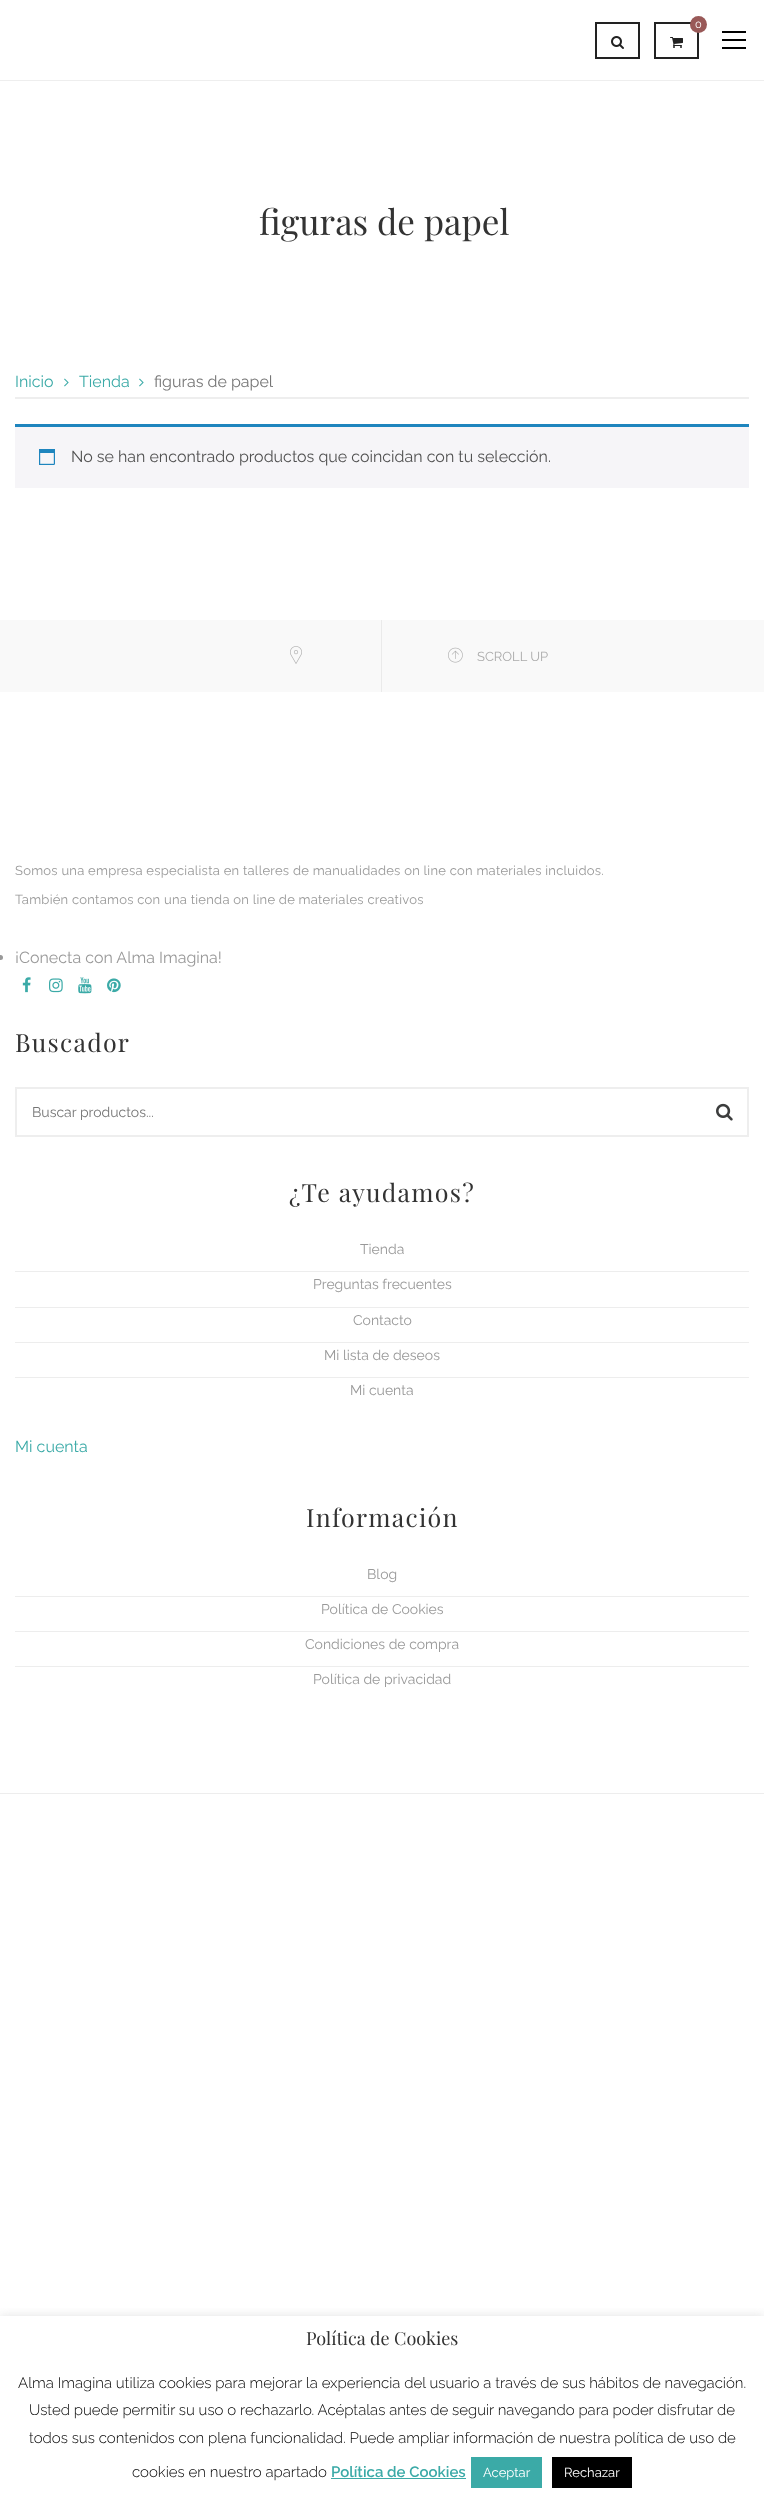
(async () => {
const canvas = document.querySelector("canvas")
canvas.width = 764
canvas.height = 2505
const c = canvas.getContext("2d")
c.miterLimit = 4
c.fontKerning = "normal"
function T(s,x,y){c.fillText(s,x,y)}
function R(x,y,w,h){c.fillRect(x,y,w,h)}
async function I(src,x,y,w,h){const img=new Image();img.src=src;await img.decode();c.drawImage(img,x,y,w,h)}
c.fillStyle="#fff"
R(0,0,764,2505)
c.fillStyle="#eee"
R(0,80,764,1)
c.strokeStyle="#222"
c.lineWidth=2
c.strokeRect(596,23,43,35)
await I("1.png",611,36,13,13)
c.strokeRect(655,23,43,35)
c.fillStyle="#995958"
c.beginPath()
c.arc(698.5,24.5,8.5,0,7)
c.fill()
c.font="11px Raleway"
c.fillStyle="#fff"
T("0",695,28)
await I("2.png",670,37,13,11)
c.fillStyle="#000"
R(722,31,24,2)
R(722,39,24,2)
R(722,47,24,2)
c.font="35px Playfair Display"
c.fillStyle="#333"
T("figuras de papel",259,235)
c.fillStyle="#eee"
R(15,397,734,2)
c.font="16px Raleway"
c.fillStyle="#3baaa7"
T("Inicio",15,387)
await I("3.png",64,378,5,9)
T("Tienda",79,387)
await I("3.png",139,378,5,9)
c.fillStyle="#757575"
T("figuras de papel",154,387)
c.fillStyle="#f6f5f8"
R(15,427,734,61)
c.fillStyle="#1e85be"
R(15,424,734,3)
await I("4.png",39,449,16,16)
c.fillStyle="#515151"
T("No se han encontrado productos que coincidan con tu selección.",71,462)
c.fillStyle="#f9f9f9"
R(0,620,764,72)
c.fillStyle="#eaeaea"
R(381,620,1,72)
await I("5.png",290,646,12,18)
await I("6.png",448,647,15,16)
c.font="13px Raleway"
c.fillStyle="#aaa"
T("SCROLL UP",477,661)
c.letterSpacing="0.25px"
c.fillStyle="#999"
T("Somos una empresa especialista en talleres de manualidades on line con materiales incluidos.",15,875)
T("También contamos con una tienda on line de materiales creativos",15,904)
c.beginPath()
c.arc(.5,957.5,2.5,0,7)
c.fill()
c.letterSpacing="0px"
c.font="16px Raleway"
T("¡Conecta con Alma Imagina!",15,963)
await I("7.png",22,977,9,16)
await I("8.png",49,978,14,15)
await I("9.png",78,977,14,17)
await I("10.png",107,978,14,15)
c.letterSpacing="1.25px"
c.font="25px Playfair Display"
c.fillStyle="#333"
T("Buscador",15,1052)
c.strokeStyle="#eee"
c.strokeRect(16,1088,732,48)
c.letterSpacing="0px"
c.font="14px Raleway"
c.fillStyle="#757575"
T("Buscar productos...",32,1117)
await I("11.png",716,1103,17,18)
c.letterSpacing="1.25px"
c.font="25px Playfair Display"
c.fillStyle="#333"
T("¿Te ayudamos?",289,1202)
c.letterSpacing="0px"
c.font="14px Raleway"
c.fillStyle="#999"
T("Tienda",360,1254)
c.fillStyle="#ededed"
R(15,1271,734,1)
c.fillStyle="#999"
T("Preguntas frecuentes",313,1289)
c.fillStyle="#ededed"
R(15,1307,734,1)
c.fillStyle="#999"
T("Contacto",353,1325)
c.fillStyle="#ededed"
R(15,1342,734,1)
c.fillStyle="#999"
T("Mi lista de deseos",324,1360)
c.fillStyle="#ededed"
R(15,1377,734,1)
c.fillStyle="#999"
T("Mi cuenta",350,1395)
c.font="16px Raleway"
c.fillStyle="#3baaa7"
T("Mi cuenta",15,1452)
c.letterSpacing="1.25px"
c.font="25px Playfair Display"
c.fillStyle="#333"
T("Información",306,1527)
c.letterSpacing="0px"
c.font="14px Raleway"
c.fillStyle="#999"
T("Blog",367,1579)
c.fillStyle="#ededed"
R(15,1596,734,1)
c.fillStyle="#999"
T("Política de Cookies",321,1614)
c.fillStyle="#ededed"
R(15,1631,734,1)
c.fillStyle="#999"
T("Condiciones de compra",305,1649)
c.fillStyle="#ededed"
R(15,1666,734,1)
c.fillStyle="#999"
T("Política de privacidad",313,1684)
c.fillStyle="#ededed"
R(0,1793,764,1)
c.save()
c.beginPath()
c.rect(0,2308,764,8)
c.clip()
c.fillStyle="#acabab4d"
c.filter="blur(5px)"
c.beginPath()
c.rect(0,2315,764,189)
c.fill()
c.filter="none"
c.restore()
c.font="18px Playfair Display"
c.fillStyle="#333"
T("Política de Cookies",306,2345)
c.font="300 15px Raleway"
c.fillStyle="#000"
T("Alma Imagina utiliza cookies para mejorar la experiencia del usuario a través de sus hábitos de navegación.",18,2388)
T("Usted puede permitir su uso o rechazarlo. Acéptalas antes de seguir navegando para poder disfrutar de",29,2415)
T("todos sus contenidos con plena funcionalidad. Puede ampliar información de nuestra política de uso de",29,2443)
T("cookies en nuestro apartado",132,2477)
c.font="600 15px Raleway"
c.fillStyle="#3baaa7"
T("Política de Cookies",331,2477)
R(331,2478,135,1)
R(471,2457,71,31)
c.font="13px Raleway"
c.fillStyle="#fff"
T("Aceptar",483,2477)
c.fillStyle="#000"
R(552,2457,80,31)
c.fillStyle="#fff"
T("Rechazar",564,2477)
})()
